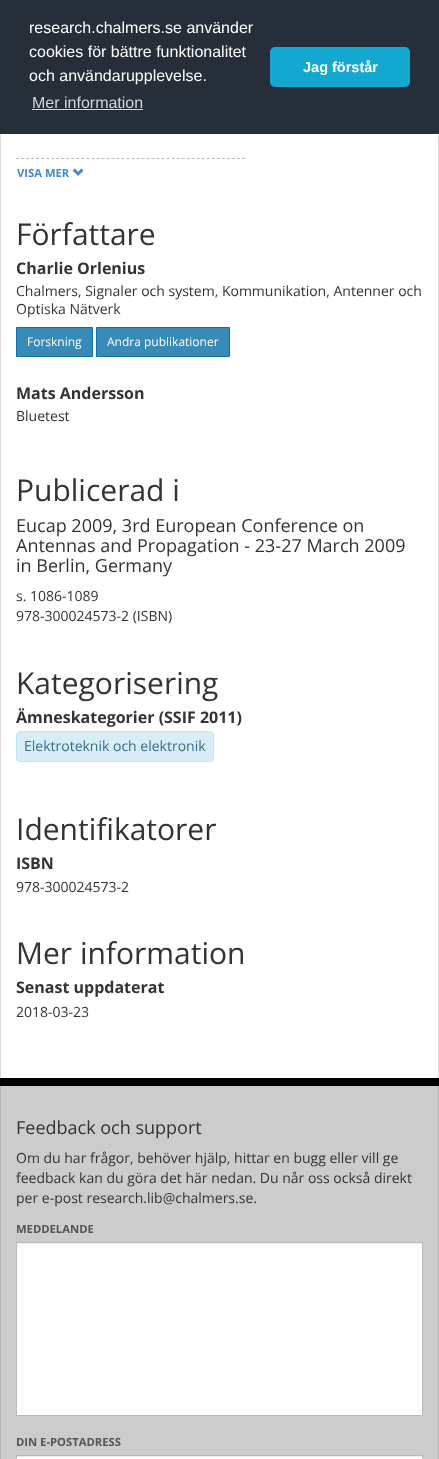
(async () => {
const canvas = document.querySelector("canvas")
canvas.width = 439
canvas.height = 1459
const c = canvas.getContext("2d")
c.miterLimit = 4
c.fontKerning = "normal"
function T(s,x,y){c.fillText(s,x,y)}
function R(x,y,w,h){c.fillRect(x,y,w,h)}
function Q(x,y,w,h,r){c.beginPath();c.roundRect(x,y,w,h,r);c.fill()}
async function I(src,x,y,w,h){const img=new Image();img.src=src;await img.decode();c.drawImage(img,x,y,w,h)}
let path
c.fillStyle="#fff"
R(0,0,439,1459)
c.fillStyle="#252e39"
R(0,0,439,134)
c.font="16px Liberation Sans"
c.fillStyle="#fff"
T("research.chalmers.se använder",29,33)
T("cookies för bättre funktionalitet",29,57)
T("och användarupplevelse.",29,81)
c.fillStyle="#d3d5d7"
T("Mer information",32,108)
R(32,109,111,1)
c.fillStyle="#14a7d0"
Q(270,47,140,40,5)
c.font="bold 14.5px Liberation Sans"
c.fillStyle="#fff"
T("Jag förstår",303,72)
c.fillStyle="#dcdcdc"
R(438,134,1,944)
R(0,134,1,944)
path = new Path2D("M16 158.5h229")
c.strokeStyle="#bbb"
c.setLineDash([3,2.02])
c.stroke(path)
c.font="bold 11.25px Open Sans"
c.fillStyle="#428bca"
T("VISA MER",17,177)
await I("1.png",72,168,12,8)
c.font="30px Open Sans"
c.fillStyle="#333"
T("Författare",16,245)
c.font="bold 16px Open Sans"
T("Charlie Orlenius",16,274)
c.font="14px Open Sans"
T("Chalmers, Signaler och system, Kommunikation, Antenner och",16,296)
T("Optiska Nätverk",16,314)
c.fillStyle="#398bb7"
c.beginPath()
c.rect(16.5,327.5,76,29)
c.fill()
c.strokeStyle="#0e72a7"
c.setLineDash([])
c.stroke()
c.font="12px Open Sans"
c.fillStyle="#fff"
T("Forskning",27,346)
c.fillStyle="#398bb7"
c.beginPath()
c.rect(96.5,327.5,133,29)
c.fill()
c.stroke()
c.fillStyle="#fff"
T("Andra publikationer",107,346)
c.font="bold 16px Open Sans"
c.fillStyle="#333"
T("Mats Andersson",16,399)
c.font="14px Open Sans"
T("Bluetest",16,421)
c.font="30px Open Sans"
T("Publicerad i",16,501)
c.font="18px Open Sans"
T("Eucap 2009, 3rd European Conference on",16,532)
T("Antennas and Propagation - 23-27 March 2009",16,552)
T("in Berlin, Germany",16,572)
c.font="14px Open Sans"
T("s. 1086-1089",16,601)
T("978-300024573-2 (ISBN)",16,621)
c.font="30px Open Sans"
T("Kategorisering",16,694)
c.font="bold 16px Open Sans"
T("Ämneskategorier (SSIF 2011)",16,723)
c.fillStyle="#d9edf7"
c.beginPath()
c.roundRect(16.5,731.5,197,30,3.5)
c.fill()
c.strokeStyle="#bce8f1"
c.stroke()
c.font="14px Open Sans"
c.fillStyle="#31708f"
T("Elektroteknik och elektronik",24,751)
c.font="30px Open Sans"
c.fillStyle="#333"
T("Identifikatorer",16,840)
c.font="bold 16px Open Sans"
T("ISBN",16,869)
c.font="14px Open Sans"
T("978-300024573-2",16,892)
c.font="30px Open Sans"
T("Mer information",16,964)
c.font="bold 16px Open Sans"
T("Senast uppdaterat",16,993)
c.font="14px Open Sans"
T("2018-03-23",16,1017)
c.fillStyle="#ccc"
R(1,1086,437,373)
c.fillStyle="#000"
R(0,1078,439,8)
c.fillStyle="#b4b4b4"
R(438,1086,1,373)
R(0,1086,1,373)
c.font="18px Open Sans"
c.fillStyle="#333"
T("Feedback och support",16,1134)
c.font="14px Open Sans"
T("Om du har frågor, behöver hjälp, hittar en bugg eller vill ge",16,1163)
T("feedback kan du göra det här nedan. Du når oss också direkt",16,1183)
T("per e-post research.lib@chalmers.se.",16,1203)
c.font="bold 11.25px Open Sans"
c.fillStyle="#555"
T("MEDDELANDE",16,1233)
c.fillStyle="#fff"
R(17,1244,405,171)
c.fillStyle="#ececec"
R(17,1243,405,1)
c.strokeStyle="#bbb"
c.strokeRect(16.5,1242.5,406,173)
c.fillStyle="#555"
T("DIN E-POSTADRESS",16,1446)
c.fillStyle="#fff"
R(16,1457,407,2)
c.fillStyle="#ececec"
R(17,1456,405,1)
c.strokeRect(16.5,1455.5,406,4)
})()
